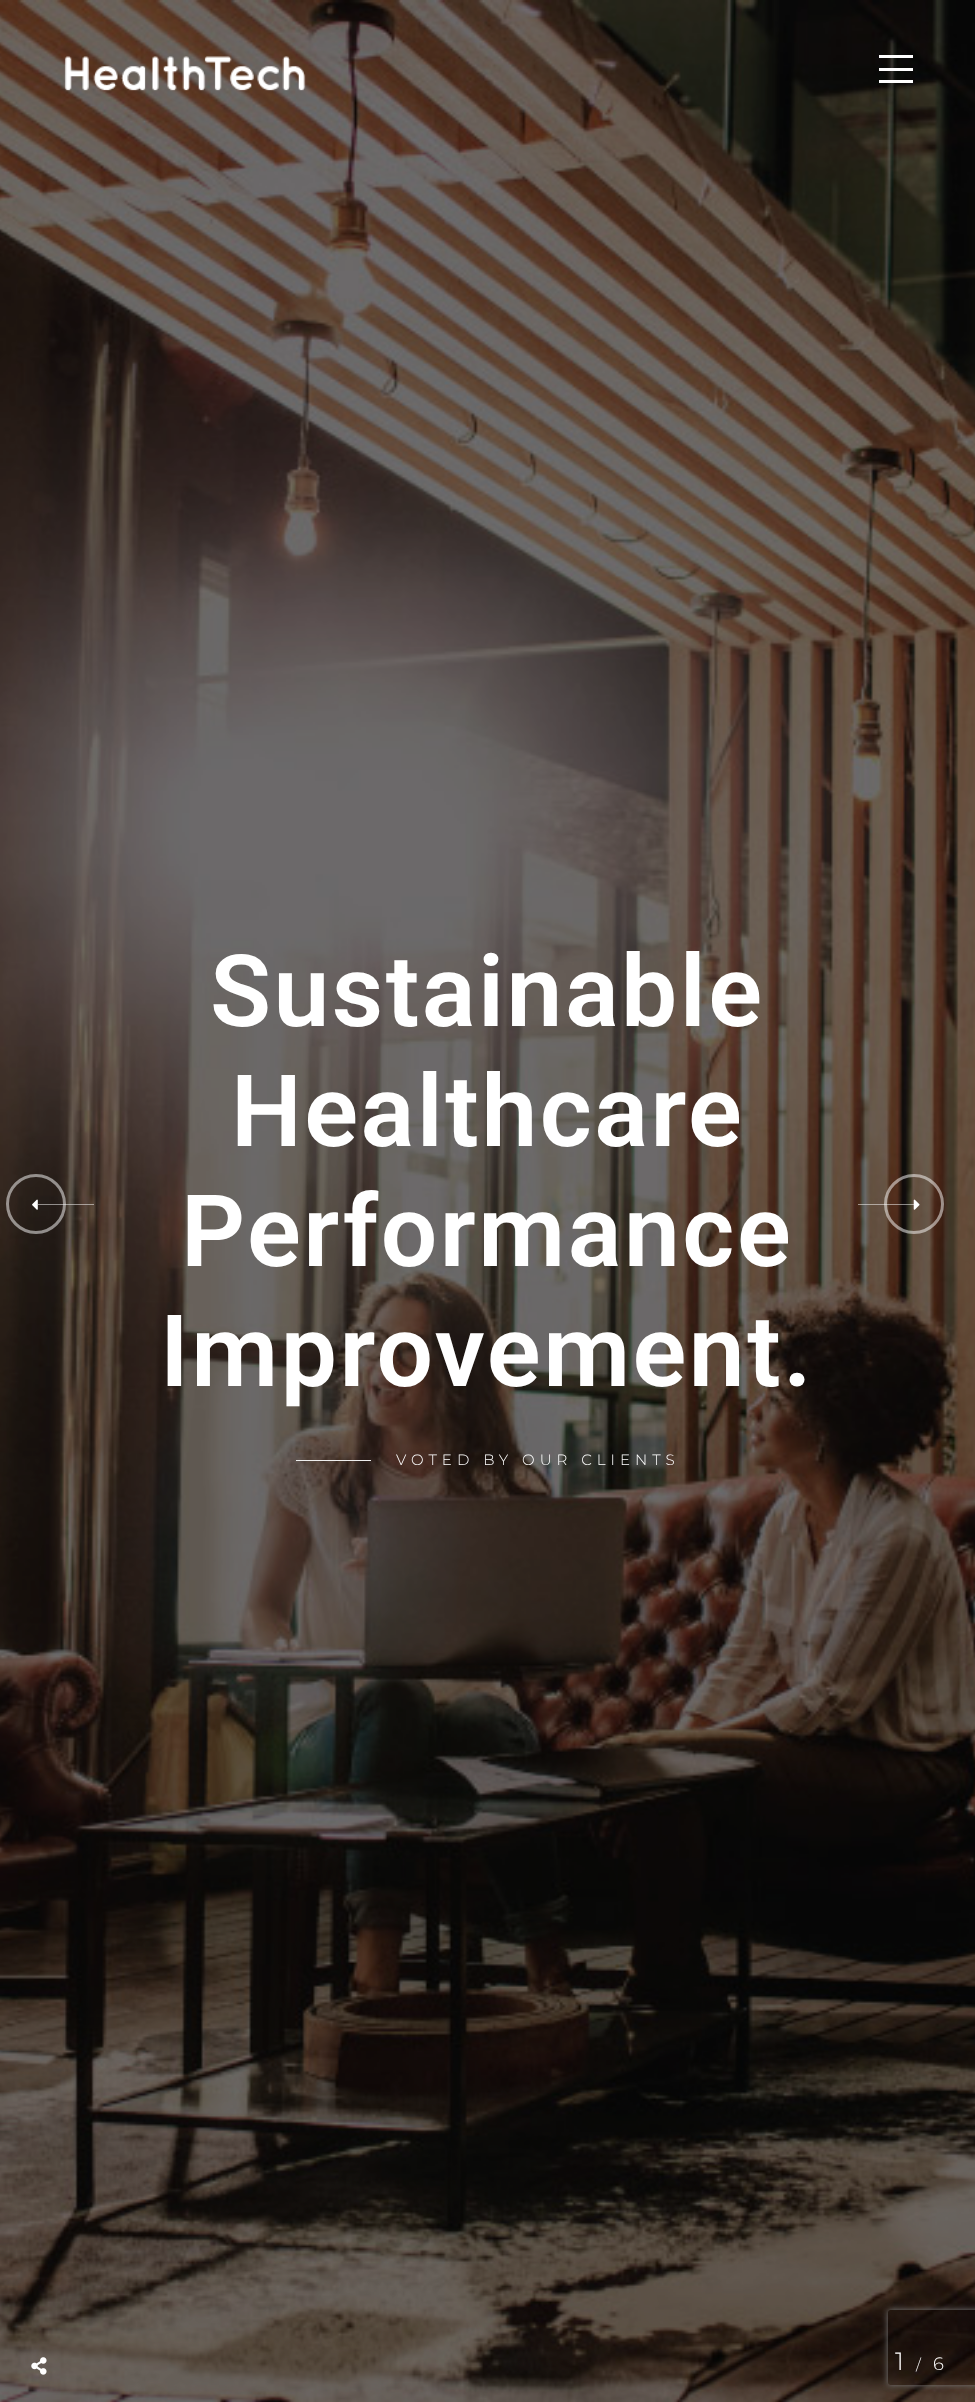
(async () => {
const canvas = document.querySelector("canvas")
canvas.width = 975
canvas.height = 2402
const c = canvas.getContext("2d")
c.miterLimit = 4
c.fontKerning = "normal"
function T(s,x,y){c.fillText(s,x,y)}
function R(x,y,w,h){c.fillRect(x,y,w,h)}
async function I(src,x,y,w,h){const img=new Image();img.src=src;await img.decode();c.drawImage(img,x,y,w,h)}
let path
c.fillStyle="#fff"
R(0,0,975,2402)
await I("3.png",0,0,975,2402)
await I("1.png",64,56,242,35)
R(879,55,34,3)
R(879,68,34,3)
R(879,80,34,3)
c.beginPath()
c.arc(36,1204,28.5,0,7)
c.strokeStyle="#ffffff80"
c.lineWidth=3
c.stroke()
await I("2.png",32,1199,6,11)
c.fillStyle="#ffffff80"
R(38,1204,56,1)
c.letterSpacing="2.5px"
c.font="600 100px Roboto"
c.fillStyle="#fff"
T("Sustainable",210,1026)
T("Healthcare",231,1146)
T("Performance",181,1266)
T("Improvement.",160,1386)
c.fillStyle="#eee"
R(296,1460,75,1)
c.letterSpacing="5px"
c.font="300 15px Montserrat"
c.fillStyle="#fff"
T("VOTED BY OUR CLIENTS",396,1465)
c.beginPath()
c.arc(914,1204,28.5,0,7)
c.stroke()
await I("4.png",913,1199,7,11)
c.fillStyle="#ffffff80"
R(858,1204,56,1)
await I("5.png",31,2357,16,18)
c.letterSpacing="0px"
c.font="300 25px Montserrat"
c.fillStyle="#fff"
T("1",895,2370)
c.font="300 15px Montserrat"
T("/",916,2370)
c.font="300 18px Montserrat"
T("6",933,2370)
c.save()
path = new Path2D("M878 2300h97v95h-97zm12.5 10h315c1.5 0 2.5 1 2.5 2.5v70c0 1.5-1 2.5-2.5 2.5h-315c-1.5 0-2.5-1-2.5-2.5v-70c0-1.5 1-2.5 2.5-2.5z")
c.clip(path,"evenodd")
c.fillStyle="#808080"
c.filter="blur(3px)"
c.beginPath()
c.roundRect(888,2310,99,75,2.5)
c.fill()
c.filter="none"
c.restore()
})()
